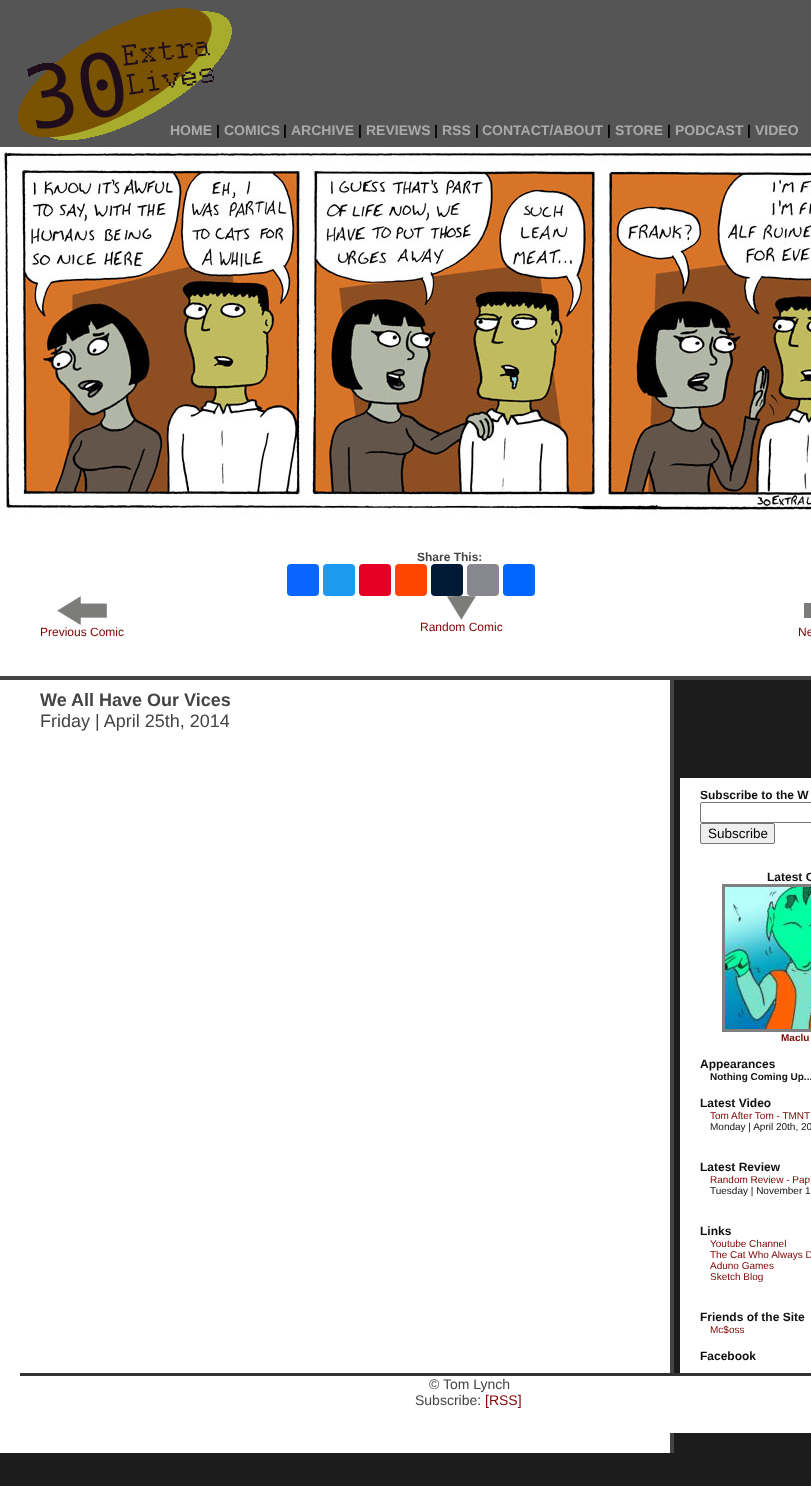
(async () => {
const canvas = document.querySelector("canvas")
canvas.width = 811
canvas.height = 1486
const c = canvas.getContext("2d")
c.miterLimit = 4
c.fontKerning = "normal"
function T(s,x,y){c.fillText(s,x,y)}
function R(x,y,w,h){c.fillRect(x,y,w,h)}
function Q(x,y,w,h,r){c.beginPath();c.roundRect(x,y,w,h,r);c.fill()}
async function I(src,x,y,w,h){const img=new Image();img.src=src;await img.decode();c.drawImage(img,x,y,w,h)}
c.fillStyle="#1c1c1c"
R(0,0,811,1486)
c.fillStyle="#555"
R(0,0,811,147)
await I("1.png",18,8,214,132)
c.font="bold 14px Liberation Sans"
c.fillStyle="#aaa"
T("HOME",170,135)
c.fillStyle="#000"
T("|",216,135)
c.fillStyle="#aaa"
T("COMICS",224,135)
c.fillStyle="#000"
T("|",283,135)
c.fillStyle="#aaa"
T("ARCHIVE",291,135)
c.fillStyle="#000"
T("|",358,135)
c.fillStyle="#aaa"
T("REVIEWS",366,135)
c.fillStyle="#000"
T("|",434,135)
c.fillStyle="#aaa"
T("RSS",442,135)
c.fillStyle="#000"
T("|",475,135)
c.fillStyle="#aaa"
T("CONTACT/ABOUT",482,135)
c.fillStyle="#000"
T("|",607,135)
c.fillStyle="#aaa"
T("STORE",615,135)
c.fillStyle="#000"
T("|",667,135)
c.fillStyle="#aaa"
T("PODCAST",675,135)
c.fillStyle="#000"
T("|",747,135)
c.fillStyle="#aaa"
T("VIDEO",755,135)
c.fillStyle="#fff"
R(0,515,811,161)
c.fillStyle="#444"
R(0,676,811,4)
await I("2.png",0,147,811,368)
c.font="bold 12px Liberation Sans"
T("Share This:",417,561)
c.fillStyle="#0866ff"
Q(287,564,32,32,4)
c.fillStyle="#1d9bf0"
Q(323,564,32,32,4)
c.fillStyle="#e60023"
Q(359,564,32,32,4)
c.fillStyle="#ff4500"
Q(395,564,32,32,4)
c.fillStyle="#001935"
Q(431,564,32,32,4)
c.fillStyle="#888990"
Q(467,564,32,32,4)
c.fillStyle="#0166ff"
Q(503,564,32,32,4)
await I("3.png",447,596,29,24)
await I("4.png",57,596,50,29)
c.font="12px Liberation Sans"
c.fillStyle="#7f0000"
T("Previous Comic",40,636)
T("Random Comic",420,631)
T("Ne",798,636)
c.fillStyle="#7c7d7a"
R(804,603,7,15)
c.fillStyle="#fff"
R(0,680,670,773)
c.fillStyle="#444"
R(670,680,4,773)
c.font="bold 18px Liberation Sans"
T("We All Have Our Vices",40,706)
c.font="18px Liberation Sans"
T("Friday | April 25th, 2014",40,727)
c.fillStyle="#fff"
R(680,778,131,595)
c.font="bold 12px Liberation Sans"
c.fillStyle="#101010"
T("Subscribe to the W",700,799)
c.beginPath()
c.roundRect(700.5,802.5,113,20,1.5)
c.strokeStyle="#767676"
c.stroke()
c.fillStyle="#efefef"
c.beginPath()
c.roundRect(700.5,823.5,74,20,1.5)
c.fill()
c.stroke()
c.font="13.5px Liberation Sans"
c.fillStyle="#000"
T("Subscribe",708,838)
c.font="bold 12px Liberation Sans"
c.fillStyle="#101010"
T("Latest C",767,881)
c.strokeStyle="#808080"
c.lineWidth=3
c.strokeRect(723.5,885.5,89,145)
await I("5.png",725,887,86,142)
c.font="bold 10px Liberation Sans"
c.fillStyle="#7f0000"
T("Maclu",781,1041)
c.font="bold 12px Liberation Sans"
c.fillStyle="#101010"
T("Appearances",700,1068)
c.font="bold 10px Liberation Sans"
T("Nothing Coming Up...",710,1080)
c.font="bold 12px Liberation Sans"
T("Latest Video",700,1107)
c.font="10px Liberation Sans"
c.fillStyle="#7f0000"
T("Tom After Tom - TMNT",710,1119)
c.fillStyle="#101010"
T("Monday | April 20th, 20",710,1130)
c.font="bold 12px Liberation Sans"
T("Latest Review",700,1171)
c.font="10px Liberation Sans"
c.fillStyle="#7f0000"
T("Random Review - Pap",710,1183)
c.fillStyle="#101010"
T("Tuesday | November 1",710,1194)
c.font="bold 12px Liberation Sans"
T("Links",700,1235)
c.font="10px Liberation Sans"
c.fillStyle="#7f0000"
T("Youtube Channel",710,1247)
T("The Cat Who Always D",710,1258)
T("Aduno Games",710,1269)
T("Sketch Blog",710,1280)
c.font="bold 12px Liberation Sans"
c.fillStyle="#101010"
T("Friends of the Site",700,1321)
c.font="10px Liberation Sans"
c.fillStyle="#7f0000"
T("Mc$oss",710,1333)
c.font="bold 12px Liberation Sans"
c.fillStyle="#101010"
T("Facebook",700,1360)
c.fillStyle="#fff"
R(670,1376,141,57)
c.fillStyle="#333"
R(20,1373,791,3)
c.font="14px Liberation Sans"
c.fillStyle="#444"
T("© Tom Lynch",429,1389)
T("Subscribe:",415,1405)
c.fillStyle="#7f0000"
T("[RSS]",485,1405)
})()
